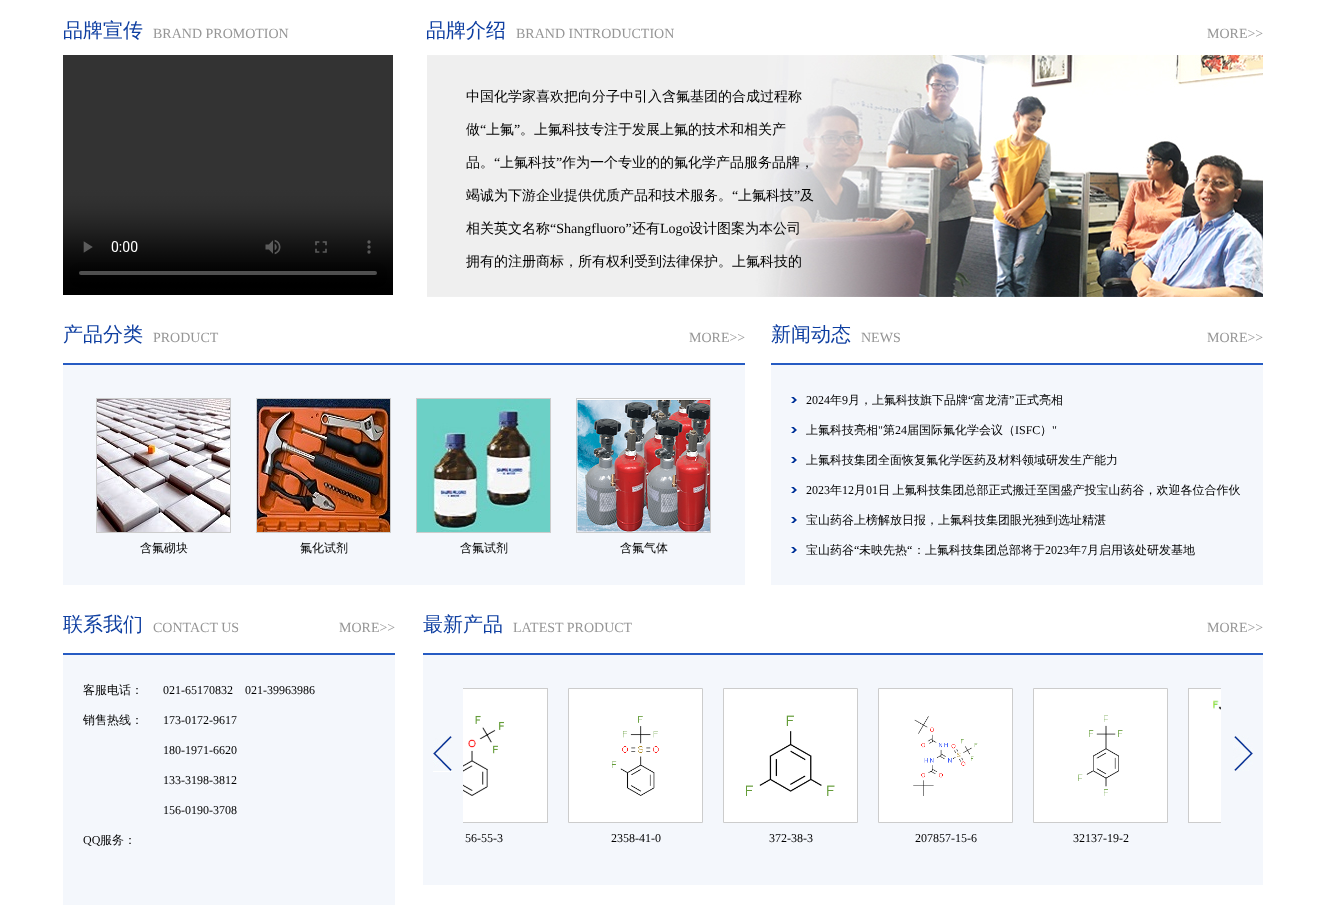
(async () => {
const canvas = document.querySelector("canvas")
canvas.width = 1326
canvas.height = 916
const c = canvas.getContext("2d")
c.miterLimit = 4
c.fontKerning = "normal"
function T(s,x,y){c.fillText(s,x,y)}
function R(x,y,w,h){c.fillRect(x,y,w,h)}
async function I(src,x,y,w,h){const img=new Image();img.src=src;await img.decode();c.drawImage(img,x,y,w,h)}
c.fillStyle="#fff"
R(0,0,1326,916)
c.font="500 20px WenQuanYi Zen Hei"
c.fillStyle="#0f3fa1"
T("品牌宣传",63,37)
c.font="14px Liberation Serif"
c.fillStyle="#969696"
T("BRAND PROMOTION",153,38)
await I("1.png",63,55,330,240)
c.font="500 20px WenQuanYi Zen Hei"
c.fillStyle="#0f3fa1"
T("品牌介绍",426,37)
c.font="14px Liberation Serif"
c.fillStyle="#969696"
T("BRAND INTRODUCTION",516,38)
T("MORE>>",1207,38)
await I("2.png",427,55,836,242)
c.font="500 14px WenQuanYi Zen Hei"
c.fillStyle="#000"
T("中国化学家喜欢把向分子中引入含氟基团的合成过程称",466,101)
T("做",466,134)
c.font="14px Liberation Serif"
T("“",480,134)
c.font="500 14px WenQuanYi Zen Hei"
T("上氟",486,134)
c.font="14px Liberation Serif"
T("”",514,134)
c.font="500 14px WenQuanYi Zen Hei"
T("。上氟科技专注于发展上氟的技术和相关产",520,134)
T("品。",466,167)
c.font="14px Liberation Serif"
T("“",494,167)
c.font="500 14px WenQuanYi Zen Hei"
T("上氟科技",500,167)
c.font="14px Liberation Serif"
T("”",556,167)
c.font="500 14px WenQuanYi Zen Hei"
T("作为一个专业的的氟化学产品服务品牌，",562,167)
T("竭诚为下游企业提供优质产品和技术服务。",466,200)
c.font="14px Liberation Serif"
T("“",732,200)
c.font="500 14px WenQuanYi Zen Hei"
T("上氟科技",738,200)
c.font="14px Liberation Serif"
T("”",794,200)
c.font="500 14px WenQuanYi Zen Hei"
T("及",800,200)
T("相关英文名称",466,233)
c.font="14px Liberation Serif"
T("“Shangfluoro”",550,233)
c.font="500 14px WenQuanYi Zen Hei"
T("还有",632,233)
c.font="14px Liberation Serif"
T("Logo",660,233)
c.font="500 14px WenQuanYi Zen Hei"
T("设计图案为本公司",689,233)
T("拥有的注册商标，所有权利受到法律保护。上氟科技的",466,266)
c.font="500 20px WenQuanYi Zen Hei"
c.fillStyle="#0f3fa1"
T("产品分类",63,341)
c.font="14px Liberation Serif"
c.fillStyle="#969696"
T("PRODUCT",153,342)
T("MORE>>",689,342)
c.fillStyle="#f4f7fc"
R(63,365,682,220)
c.fillStyle="#265bc3"
R(63,363,682,2)
c.strokeStyle="#ccc"
c.strokeRect(96.5,398.5,134,134)
await I("3.png",97,399,133,133)
c.font="500 12px WenQuanYi Zen Hei"
c.fillStyle="#000"
T("含氟砌块",140,552)
c.strokeRect(256.5,398.5,134,134)
await I("4.png",257,399,133,133)
T("氟化试剂",300,552)
c.strokeRect(416.5,398.5,134,134)
await I("5.png",417,399,133,133)
T("含氟试剂",460,552)
c.fillStyle="#fff"
R(577,399,133,1)
c.strokeRect(576.5,398.5,134,134)
await I("6.png",577,400,133,132)
c.fillStyle="#000"
T("含氟气体",620,552)
c.font="500 20px WenQuanYi Zen Hei"
c.fillStyle="#0f3fa1"
T("新闻动态",771,341)
c.font="14px Liberation Serif"
c.fillStyle="#969696"
T("NEWS",861,342)
T("MORE>>",1207,342)
c.fillStyle="#f4f7fc"
R(771,365,492,220)
c.fillStyle="#265bc3"
R(771,363,492,2)
await I("7.png",791,397,6,6)
c.font="12px Liberation Serif"
c.fillStyle="#000"
T("2024",806,404)
c.font="500 12px WenQuanYi Zen Hei"
T("年",830,404)
c.font="12px Liberation Serif"
T("9",842,404)
c.font="500 12px WenQuanYi Zen Hei"
T("月，上氟科技旗下品牌",848,404)
c.font="12px Liberation Serif"
T("“",968,404)
c.font="500 12px WenQuanYi Zen Hei"
T("富龙清",973,404)
c.font="12px Liberation Serif"
T("”",1009,404)
c.font="500 12px WenQuanYi Zen Hei"
T("正式亮相",1015,404)
await I("7.png",791,427,6,6)
T("上氟科技亮相",806,434)
c.font="12px Liberation Serif"
T("\"",878,434)
c.font="500 12px WenQuanYi Zen Hei"
T("第",883,434)
c.font="12px Liberation Serif"
T("24",895,434)
c.font="500 12px WenQuanYi Zen Hei"
T("届国际氟化学会议（",907,434)
c.font="12px Liberation Serif"
T("ISFC",1015,434)
c.font="500 12px WenQuanYi Zen Hei"
T("）",1040,434)
c.font="12px Liberation Serif"
T("\"",1052,434)
await I("7.png",791,457,6,6)
c.font="500 12px WenQuanYi Zen Hei"
T("上氟科技集团全面恢复氟化学医药及材料领域研发生产能力",806,464)
await I("7.png",791,487,6,6)
c.font="12px Liberation Serif"
T("2023",806,494)
c.font="500 12px WenQuanYi Zen Hei"
T("年",830,494)
c.font="12px Liberation Serif"
T("12",842,494)
c.font="500 12px WenQuanYi Zen Hei"
T("月",854,494)
c.font="12px Liberation Serif"
T("01",866,494)
c.wordSpacing="-1px"
c.font="500 12px WenQuanYi Zen Hei"
T("日 上氟科技集团总部正式搬迁至国盛产投宝山药谷，欢迎各位合作伙",878,494)
await I("7.png",791,517,6,6)
c.wordSpacing="0px"
T("宝山药谷上榜解放日报，上氟科技集团眼光独到选址精湛",806,524)
await I("7.png",791,547,6,6)
T("宝山药谷",806,554)
c.font="12px Liberation Serif"
T("“",854,554)
c.font="500 12px WenQuanYi Zen Hei"
T("未映先热",859,554)
c.font="12px Liberation Serif"
T("“",907,554)
c.font="500 12px WenQuanYi Zen Hei"
T("：上氟科技集团总部将于",913,554)
c.font="12px Liberation Serif"
T("2023",1045,554)
c.font="500 12px WenQuanYi Zen Hei"
T("年",1069,554)
c.font="12px Liberation Serif"
T("7",1081,554)
c.font="500 12px WenQuanYi Zen Hei"
T("月启用该处研发基地",1087,554)
c.font="500 20px WenQuanYi Zen Hei"
c.fillStyle="#0f3fa1"
T("联系我们",63,631)
c.font="14px Liberation Serif"
c.fillStyle="#969696"
T("CONTACT US",153,632)
T("MORE>>",339,632)
c.fillStyle="#f4f7fc"
R(63,655,332,250)
c.fillStyle="#265bc3"
R(63,653,332,2)
c.font="500 12px WenQuanYi Zen Hei"
c.fillStyle="#000"
T("客服电话：",83,694)
c.font="12px Liberation Serif"
T("021-65170832    021-39963986",163,694)
c.font="500 12px WenQuanYi Zen Hei"
T("销售热线：",83,724)
c.font="12px Liberation Serif"
T("173-0172-9617",163,724)
T("180-1971-6620",163,754)
T("133-3198-3812",163,784)
T("156-0190-3708",163,814)
T("QQ",83,844)
c.font="500 12px WenQuanYi Zen Hei"
T("服务：",100,844)
c.font="500 20px WenQuanYi Zen Hei"
c.fillStyle="#0f3fa1"
T("最新产品",423,631)
c.font="14px Liberation Serif"
c.fillStyle="#969696"
T("LATEST PRODUCT",513,632)
T("MORE>>",1207,632)
c.fillStyle="#f4f7fc"
R(423,655,840,230)
c.fillStyle="#265bc3"
R(423,653,840,2)
await I("8.png",433,736,19,36)
c.fillStyle="#fff"
R(1189,689,32,133)
c.save()
c.beginPath()
c.rect(1188,688,33,165)
c.clip()
c.strokeRect(1188.5,688.5,134,134)
c.restore()
await I("9.png",1233,736,20,35)
await I("10.png",1213,700,8,10)
R(463,689,84,133)
c.save()
c.beginPath()
c.rect(463,688,85,165)
c.clip()
c.strokeRect(413.5,688.5,134,134)
c.restore()
await I("11.png",463,715,41,81)
c.font="12px Liberation Serif"
c.fillStyle="#000"
T("56-55-3",465,842)
c.fillStyle="#fff"
c.beginPath()
c.rect(568.5,688.5,134,134)
c.fill()
c.stroke()
await I("12.png",612,716,47,80)
c.fillStyle="#000"
T("2358-41-0",611,842)
c.fillStyle="#fff"
c.beginPath()
c.rect(723.5,688.5,134,134)
c.fill()
c.stroke()
await I("13.png",746,715,89,81)
c.fillStyle="#000"
T("372-38-3",769,842)
c.fillStyle="#fff"
c.beginPath()
c.rect(878.5,688.5,134,134)
c.fill()
c.stroke()
await I("14.png",913,716,65,80)
c.fillStyle="#000"
T("207857-15-6",915,842)
c.fillStyle="#fff"
c.beginPath()
c.rect(1033.5,688.5,134,134)
c.fill()
c.stroke()
await I("15.png",1078,715,45,81)
c.fillStyle="#000"
T("32137-19-2",1073,842)
})()
